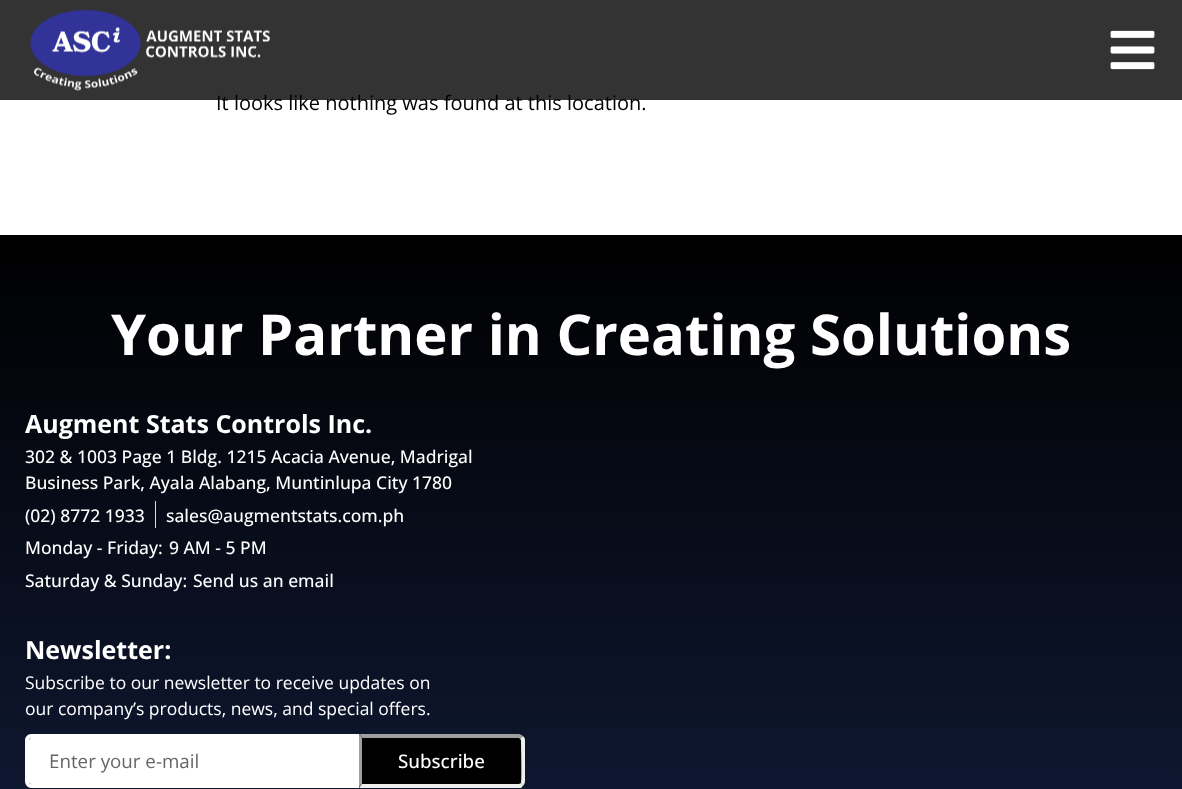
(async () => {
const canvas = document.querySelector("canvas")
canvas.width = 1182
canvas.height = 789
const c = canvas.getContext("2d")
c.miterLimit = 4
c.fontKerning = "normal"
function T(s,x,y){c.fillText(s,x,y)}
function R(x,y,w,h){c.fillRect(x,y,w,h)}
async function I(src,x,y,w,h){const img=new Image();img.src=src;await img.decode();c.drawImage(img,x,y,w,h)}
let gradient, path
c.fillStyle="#fff"
R(0,0,1182,789)
c.font="20px Open Sans"
c.fillStyle="#000"
T("It looks like nothing was found at this location.",216,110)
c.fillStyle="#000000cc"
R(0,0,1182,100)
await I("1.png",30,9,240,82)
await I("2.png",1110,30,45,40)
gradient = c.createLinearGradient(591,235,591,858)
gradient.addColorStop(0,"#000")
gradient.addColorStop(1,"#101a36")
c.fillStyle = gradient
R(0,235,1182,554)
c.font="bold 56.25px Open Sans"
c.fillStyle="#fff"
T("Your Partner in Creating Solutions",111,355)
c.font="bold 25px Open Sans"
T("Augment Stats Controls Inc.",25,433)
c.font="500 17.5px Open Sans"
T("302 & 1003 Page 1 Bldg. 1215 Acacia Avenue, Madrigal",25,463)
T("Business Park, Ayala Alabang, Muntinlupa City 1780",25,489)
T("(02) 8772 1933",25,522)
c.fillStyle="#ddd"
R(155,501,1,27)
c.fillStyle="#fff"
T("sales@augmentstats.com.ph",166,522)
T("Monday - Friday:",25,554)
T("9 AM - 5 PM",169,554)
T("Saturday & Sunday:",25,587)
T("Send us an email",193,587)
c.font="bold 25px Open Sans"
T("Newsletter:",25,659)
c.font="17.5px Open Sans"
T("Subscribe to our newsletter to receive updates on",25,689)
T("our company’s products, news, and special offers.",25,715)
c.beginPath()
c.roundRect(29,738,330,46,[2.5,0,0,2.5])
c.fill()
path = new Path2D("M31 734h328v54h-328c-3 0-6-3-6-7v-41c0-3 3-6 6-6zm0 4h328v46h-328c-1 0-2-1-2-3v-41c0-1 1-2 2-2z")
c.fill(path,"evenodd")
c.font="18.75px Open Sans"
c.fillStyle="#666"
T("Enter your e-mail",49,768)
c.fillStyle="#000"
c.beginPath()
c.roundRect(359,734,166,54,[0,6,6,0])
c.fill()
c.fillStyle="#9f9f9f"
path = new Path2D("M359 734l4 4h156l1 1l3-3c-1-1-3-2-4-2z")
c.fill(path)
c.fillStyle="#eee"
path = new Path2D("M523 736c1 1 2 2 2 4v41c0 2-1 4-2 5l-2-3c1-2 0-40 0-43l-1-1z")
c.fill(path)
path = new Path2D("M359 788l3-4h157l2-1l2 3l-2 2z")
c.fill(path)
c.fillStyle="#9f9f9f"
path = new Path2D("M362 738h1l-4-4v53l3-3z")
c.fill(path)
c.font="500 18.75px Open Sans"
c.fillStyle="#fff"
T("Subscribe",398,768)
})()
